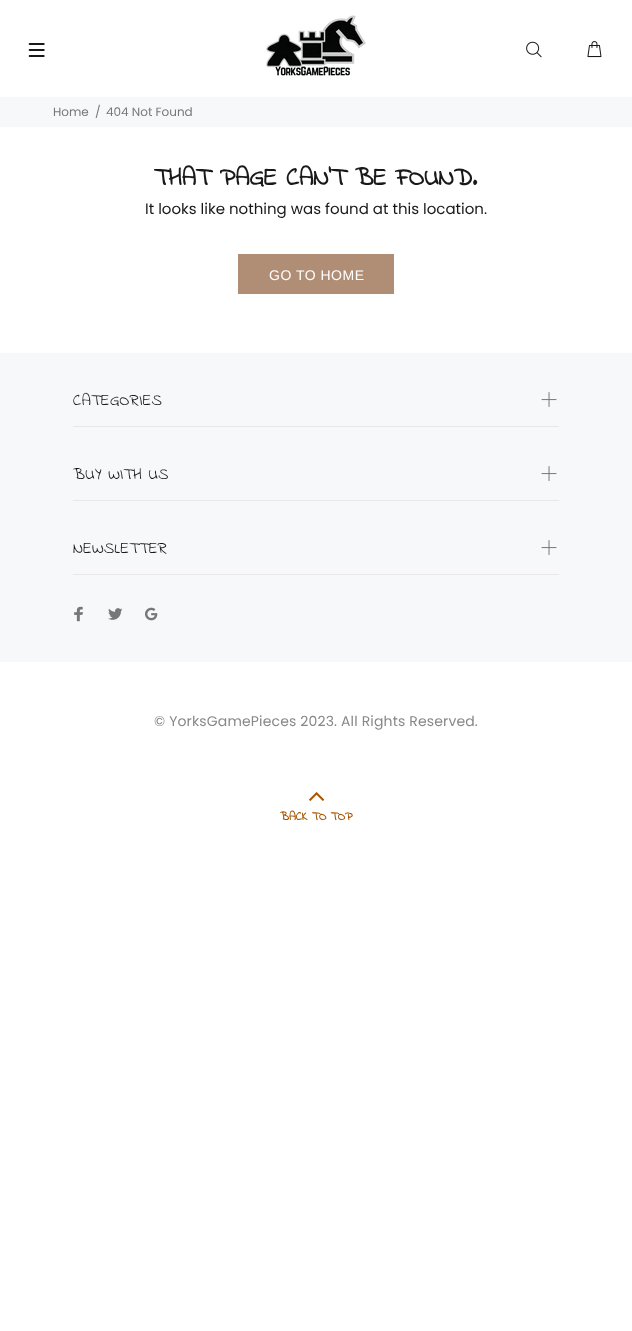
(async () => {
const canvas = document.querySelector("canvas")
canvas.width = 632
canvas.height = 1331
const c = canvas.getContext("2d")
c.miterLimit = 4
c.fontKerning = "normal"
function T(s,x,y){c.fillText(s,x,y)}
function R(x,y,w,h){c.fillRect(x,y,w,h)}
async function I(src,x,y,w,h){const img=new Image();img.src=src;await img.decode();c.drawImage(img,x,y,w,h)}
c.fillStyle="#fff"
R(0,0,632,1331)
await I("1.png",28,43,17,14)
await I("2.png",266,15,100,61)
await I("3.png",526,41,16,17)
await I("4.png",587,41,15,17)
c.fillStyle="#f7f8fa"
R(0,97,632,30)
c.font="12px Poppins"
c.fillStyle="#777"
T("Home",53,116)
T("/",95,116)
T("404 Not Found",106,116)
c.font="bold 25px Indie Flower"
c.fillStyle="#191919"
T("THAT PAGE CAN’T BE FOUND.",154,185)
c.font="15px Poppins"
T("It looks like nothing was found at this location.",145,214)
c.fillStyle="#b08d75"
R(238,254,156,40)
c.letterSpacing="0.5px"
c.font="14px Liberation Sans"
c.fillStyle="#fff"
T("GO TO HOME",269,280)
c.fillStyle="#f7f8fa"
R(0,353,632,309)
c.fillStyle="#e9e7e7"
R(73,426,486,1)
c.font="16px Indie Flower"
c.fillStyle="#191919"
T("CATEGORIES",73,405)
await I("5.png",541,392,16,15)
c.fillStyle="#e9e7e7"
R(73,500,486,1)
c.fillStyle="#191919"
T("BUY WITH US",73,479)
await I("5.png",541,466,16,15)
c.fillStyle="#e9e7e7"
R(73,574,486,1)
c.fillStyle="#191919"
T("NEWSLETTER",73,553)
await I("5.png",541,540,16,15)
await I("6.png",74,606,10,16)
await I("7.png",108,608,15,12)
await I("8.png",145,607,13,14)
c.letterSpacing="0.15px"
c.font="14px Poppins"
c.fillStyle="#888"
T("© YorksGamePieces 2023. All Rights Reserved.",154,726)
await I("9.png",309,792,16,9)
c.letterSpacing="0px"
c.font="bold 12px Indie Flower"
c.fillStyle="#a75502"
T("BACK TO TOP",280,820)
})()
